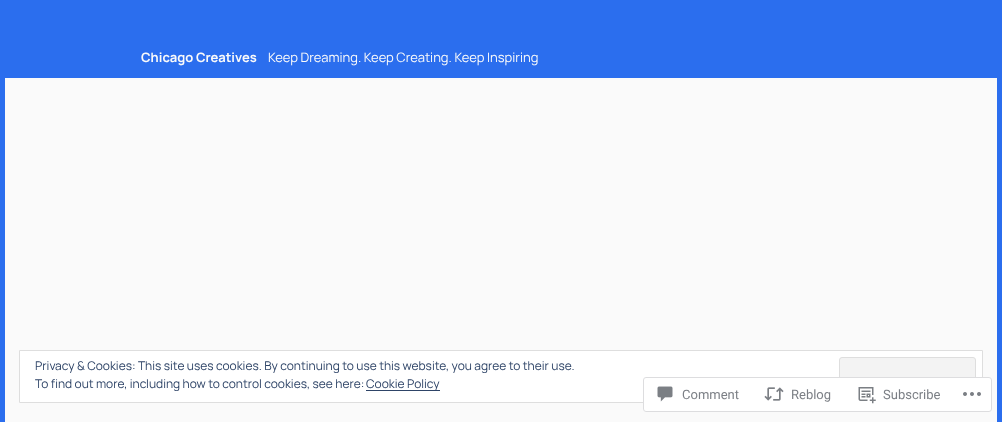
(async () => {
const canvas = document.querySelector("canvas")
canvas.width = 1002
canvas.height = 422
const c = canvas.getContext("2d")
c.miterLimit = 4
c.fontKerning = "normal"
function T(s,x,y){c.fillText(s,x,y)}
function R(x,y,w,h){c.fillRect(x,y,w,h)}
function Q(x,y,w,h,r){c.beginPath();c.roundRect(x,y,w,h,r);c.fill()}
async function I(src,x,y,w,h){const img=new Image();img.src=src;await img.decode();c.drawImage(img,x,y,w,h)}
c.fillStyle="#fafafa"
R(0,0,1002,422)
c.fillStyle="#2b6eee"
R(997,0,5,422)
R(0,0,5,422)
R(5,0,992,78)
c.font="bold 13px Manrope"
c.fillStyle="#fafafa"
T("Chicago Creatives",141,62)
c.font="13px Manrope"
T("Keep Dreaming. Keep Creating. Keep Inspiring",268,62)
c.fillStyle="#fff"
c.beginPath()
c.rect(19.5,350.5,963,52)
c.fill()
c.strokeStyle="#dedede"
c.stroke()
c.font="12px Manrope"
c.fillStyle="#2e4467"
T("Privacy & Cookies: This site uses cookies. By continuing to use this website, you agree to their use.",35,370)
c.fillStyle="#f3f3f3"
c.beginPath()
c.roundRect(839.5,357.5,136,38,2.5)
c.fill()
c.stroke()
c.fillStyle="#2e4467"
T("To find out more, including how to control cookies, see here:",35,388)
R(366,390,74,1)
T("Cookie Policy",366,388)
c.fillStyle="#fffffffa"
Q(643,377,349,35,3)
c.beginPath()
c.roundRect(643.5,377.5,348,34,2.5)
c.strokeStyle="#dcdcdefa"
c.stroke()
await I("1.png",657,386,16,16)
c.font="13px Roboto"
c.fillStyle="#7b7f85"
T("Comment",682,399)
await I("2.png",764,387,20,14)
T("Reblog",791,399)
await I("3.png",858,387,18,17)
T("Subscribe",883,399)
await I("4.png",963,392,18,4)
})()
